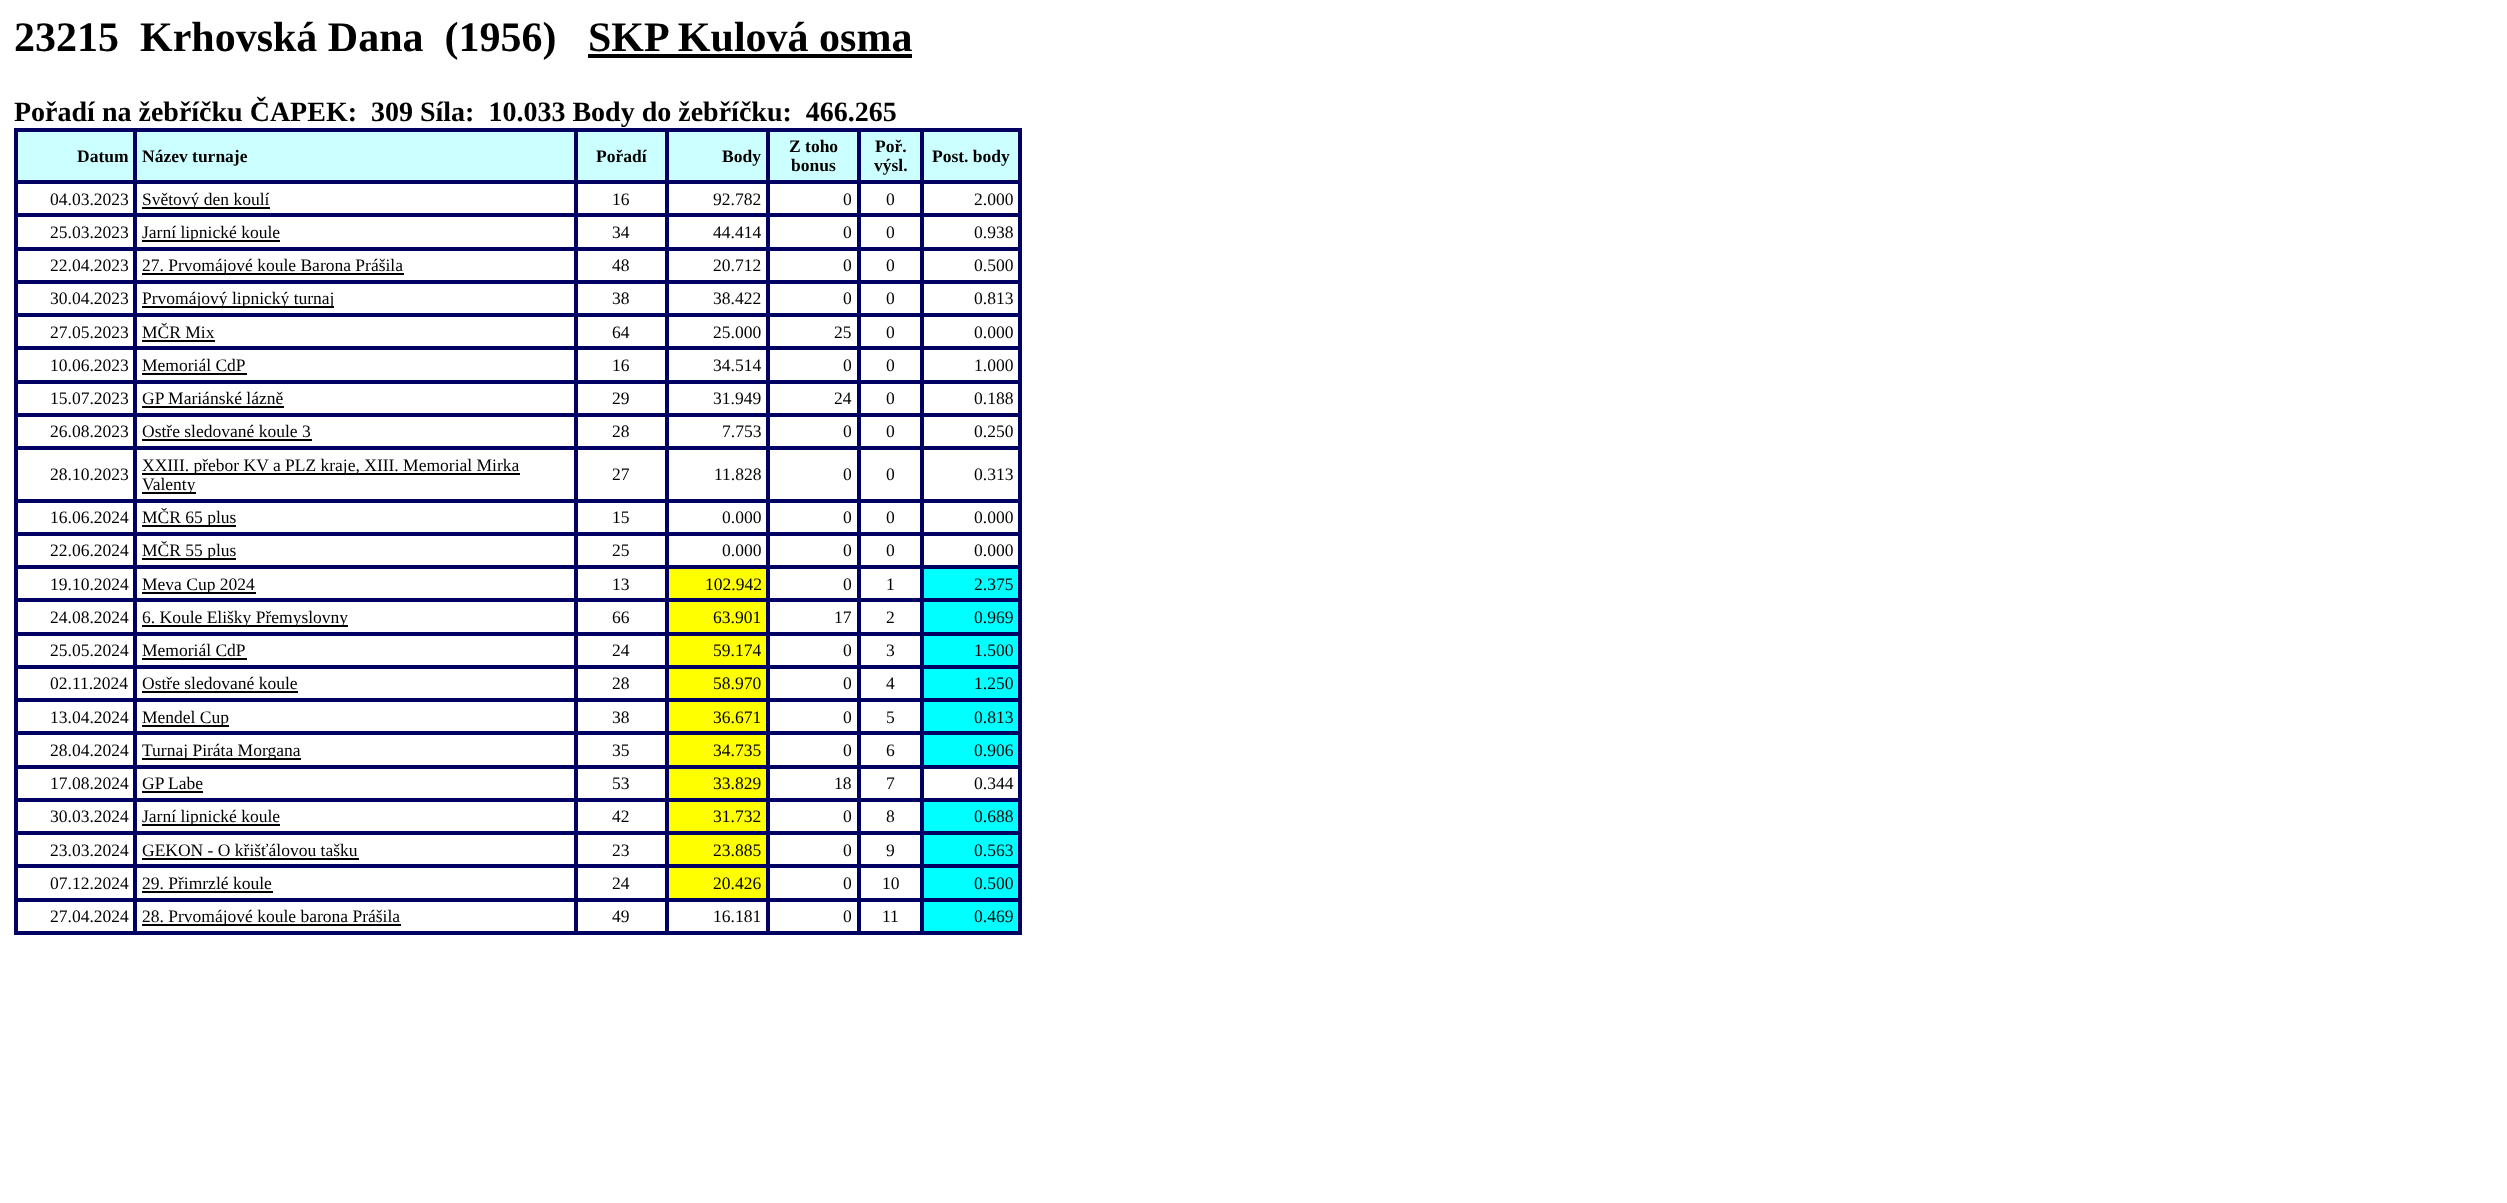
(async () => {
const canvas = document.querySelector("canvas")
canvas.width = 2507
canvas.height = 1203
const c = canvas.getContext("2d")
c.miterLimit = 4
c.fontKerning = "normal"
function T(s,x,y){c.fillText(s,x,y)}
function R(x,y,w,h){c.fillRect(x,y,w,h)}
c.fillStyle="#fff"
R(0,0,2507,1203)
c.font="bold 42px Liberation Serif"
c.fillStyle="#000"
T("23215  Krhovská Dana  (1956)",14,51)
T("SKP Kulová osma",588,51)
R(588,54,324,4)
c.font="bold 28px Liberation Serif"
T("Pořadí na žebříčku ČAPEK:  309 Síla:  10.033 Body do žebříčku:  466.265",14,121)
c.strokeStyle="#000062"
c.lineWidth=2
c.strokeRect(15,129,1006,805)
c.fillStyle="#cff"
c.beginPath()
c.rect(17,131,117,50)
c.fill()
c.stroke()
c.font="bold 17.5px Liberation Serif"
c.fillStyle="#000"
T("Datum",77,162)
c.fillStyle="#cff"
c.beginPath()
c.rect(136,131,439,50)
c.fill()
c.stroke()
c.fillStyle="#000"
T("Název turnaje",142,162)
c.fillStyle="#cff"
c.beginPath()
c.rect(577,131,89,50)
c.fill()
c.stroke()
c.fillStyle="#000"
T("Pořadí",596,162)
c.fillStyle="#cff"
c.beginPath()
c.rect(668,131,99,50)
c.fill()
c.stroke()
c.fillStyle="#000"
T("Body",722,162)
c.fillStyle="#cff"
c.beginPath()
c.rect(769,131,89,50)
c.fill()
c.stroke()
c.fillStyle="#000"
T("Z toho",789,152)
T("bonus",791,171)
c.fillStyle="#cff"
c.beginPath()
c.rect(860,131,61,50)
c.fill()
c.stroke()
c.fillStyle="#000"
T("Poř.",875,152)
T("výsl.",874,171)
c.fillStyle="#cff"
c.beginPath()
c.rect(923,131,96,50)
c.fill()
c.stroke()
c.fillStyle="#000"
T("Post. body",932,162)
c.strokeRect(17,183,117,31)
c.font="17.5px Liberation Serif"
T("04.03.2023",50,205)
c.strokeRect(136,183,439,31)
R(142,207,128,2)
T("Světový den koulí",142,205)
c.strokeRect(577,183,89,31)
T("16",612,205)
c.strokeRect(668,183,99,31)
T("92.782",713,205)
c.strokeRect(769,183,89,31)
T("0",843,205)
c.strokeRect(860,183,61,31)
T("0",886,205)
c.strokeRect(923,183,96,31)
T("2.000",974,205)
c.strokeRect(17,216,117,32)
T("25.03.2023",50,238)
c.strokeRect(136,216,439,32)
R(142,240,138,2)
T("Jarní lipnické koule",142,238)
c.strokeRect(577,216,89,32)
T("34",612,238)
c.strokeRect(668,216,99,32)
T("44.414",713,238)
c.strokeRect(769,216,89,32)
T("0",843,238)
c.strokeRect(860,216,61,32)
T("0",886,238)
c.strokeRect(923,216,96,32)
T("0.938",974,238)
c.strokeRect(17,250,117,31)
T("22.04.2023",50,271)
c.strokeRect(136,250,439,31)
R(142,273,262,2)
T("27. Prvomájové koule Barona Prášila",142,271)
c.strokeRect(577,250,89,31)
T("48",612,271)
c.strokeRect(668,250,99,31)
T("20.712",713,271)
c.strokeRect(769,250,89,31)
T("0",843,271)
c.strokeRect(860,250,61,31)
T("0",886,271)
c.strokeRect(923,250,96,31)
T("0.500",974,271)
c.strokeRect(17,283,117,31)
T("30.04.2023",50,304)
c.strokeRect(136,283,439,31)
R(142,306,192,2)
T("Prvomájový lipnický turnaj",142,304)
c.strokeRect(577,283,89,31)
T("38",612,304)
c.strokeRect(668,283,99,31)
T("38.422",713,304)
c.strokeRect(769,283,89,31)
T("0",843,304)
c.strokeRect(860,283,61,31)
T("0",886,304)
c.strokeRect(923,283,96,31)
T("0.813",974,304)
c.strokeRect(17,316,117,31)
T("27.05.2023",50,338)
c.strokeRect(136,316,439,31)
T("MČR Mix",142,338)
R(142,340,73,2)
c.strokeRect(577,316,89,31)
T("64",612,338)
c.strokeRect(668,316,99,31)
T("25.000",713,338)
c.strokeRect(769,316,89,31)
T("25",834,338)
c.strokeRect(860,316,61,31)
T("0",886,338)
c.strokeRect(923,316,96,31)
T("0.000",974,338)
c.strokeRect(17,349,117,32)
T("10.06.2023",50,371)
c.strokeRect(136,349,439,32)
T("Memoriál CdP",142,371)
R(142,373,105,2)
c.strokeRect(577,349,89,32)
T("16",612,371)
c.strokeRect(668,349,99,32)
T("34.514",713,371)
c.strokeRect(769,349,89,32)
T("0",843,371)
c.strokeRect(860,349,61,32)
T("0",886,371)
c.strokeRect(923,349,96,32)
T("1.000",974,371)
c.strokeRect(17,383,117,31)
T("15.07.2023",50,404)
c.strokeRect(136,383,439,31)
T("GP Mariánské lázně",142,404)
R(142,406,142,2)
c.strokeRect(577,383,89,31)
T("29",612,404)
c.strokeRect(668,383,99,31)
T("31.949",713,404)
c.strokeRect(769,383,89,31)
T("24",834,404)
c.strokeRect(860,383,61,31)
T("0",886,404)
c.strokeRect(923,383,96,31)
T("0.188",974,404)
c.strokeRect(17,416,117,31)
T("26.08.2023",50,437)
c.strokeRect(136,416,439,31)
T("Ostře sledované koule 3",142,437)
R(142,439,170,2)
c.strokeRect(577,416,89,31)
T("28",612,437)
c.strokeRect(668,416,99,31)
T("7.753",722,437)
c.strokeRect(769,416,89,31)
T("0",843,437)
c.strokeRect(860,416,61,31)
T("0",886,437)
c.strokeRect(923,416,96,31)
T("0.250",974,437)
c.strokeRect(17,449,117,51)
T("28.10.2023",50,480)
c.strokeRect(136,449,439,51)
R(142,473,378,2)
T("XXIII. přebor KV a PLZ kraje, XIII. Memorial Mirka",142,471)
R(142,492,54,2)
T("Valenty",142,490)
c.strokeRect(577,449,89,51)
T("27",612,480)
c.strokeRect(668,449,99,51)
T("11.828",714,480)
c.strokeRect(769,449,89,51)
T("0",843,480)
c.strokeRect(860,449,61,51)
T("0",886,480)
c.strokeRect(923,449,96,51)
T("0.313",974,480)
c.strokeRect(17,502,117,31)
T("16.06.2024",50,523)
c.strokeRect(136,502,439,31)
R(142,525,94,2)
T("MČR 65 plus",142,523)
c.strokeRect(577,502,89,31)
T("15",612,523)
c.strokeRect(668,502,99,31)
T("0.000",722,523)
c.strokeRect(769,502,89,31)
T("0",843,523)
c.strokeRect(860,502,61,31)
T("0",886,523)
c.strokeRect(923,502,96,31)
T("0.000",974,523)
c.strokeRect(17,535,117,31)
T("22.06.2024",50,556)
c.strokeRect(136,535,439,31)
R(142,558,94,2)
T("MČR 55 plus",142,556)
c.strokeRect(577,535,89,31)
T("25",612,556)
c.strokeRect(668,535,99,31)
T("0.000",722,556)
c.strokeRect(769,535,89,31)
T("0",843,556)
c.strokeRect(860,535,61,31)
T("0",886,556)
c.strokeRect(923,535,96,31)
T("0.000",974,556)
c.strokeRect(17,568,117,31)
T("19.10.2024",50,590)
c.strokeRect(136,568,439,31)
R(142,592,114,2)
T("Meva Cup 2024",142,590)
c.strokeRect(577,568,89,31)
T("13",612,590)
c.fillStyle="#ff0"
c.beginPath()
c.rect(668,568,99,31)
c.fill()
c.stroke()
c.fillStyle="#000"
T("102.942",705,590)
c.strokeRect(769,568,89,31)
T("0",843,590)
c.strokeRect(860,568,61,31)
T("1",886,590)
c.fillStyle="#0ff"
c.beginPath()
c.rect(923,568,96,31)
c.fill()
c.stroke()
c.fillStyle="#000"
T("2.375",974,590)
c.strokeRect(17,601,117,32)
T("24.08.2024",50,623)
c.strokeRect(136,601,439,32)
R(142,625,206,2)
T("6. Koule Elišky Přemyslovny",142,623)
c.strokeRect(577,601,89,32)
T("66",612,623)
c.fillStyle="#ff0"
c.beginPath()
c.rect(668,601,99,32)
c.fill()
c.stroke()
c.fillStyle="#000"
T("63.901",713,623)
c.strokeRect(769,601,89,32)
T("17",834,623)
c.strokeRect(860,601,61,32)
T("2",886,623)
c.fillStyle="#0ff"
c.beginPath()
c.rect(923,601,96,32)
c.fill()
c.stroke()
c.fillStyle="#000"
T("0.969",974,623)
c.strokeRect(17,635,117,31)
T("25.05.2024",50,656)
c.strokeRect(136,635,439,31)
T("Memoriál CdP",142,656)
R(142,658,105,2)
c.strokeRect(577,635,89,31)
T("24",612,656)
c.fillStyle="#ff0"
c.beginPath()
c.rect(668,635,99,31)
c.fill()
c.stroke()
c.fillStyle="#000"
T("59.174",713,656)
c.strokeRect(769,635,89,31)
T("0",843,656)
c.strokeRect(860,635,61,31)
T("3",886,656)
c.fillStyle="#0ff"
c.beginPath()
c.rect(923,635,96,31)
c.fill()
c.stroke()
c.fillStyle="#000"
T("1.500",974,656)
c.strokeRect(17,668,117,31)
T("02.11.2024",50,689)
c.strokeRect(136,668,439,31)
T("Ostře sledované koule",142,689)
R(142,691,156,2)
c.strokeRect(577,668,89,31)
T("28",612,689)
c.fillStyle="#ff0"
c.beginPath()
c.rect(668,668,99,31)
c.fill()
c.stroke()
c.fillStyle="#000"
T("58.970",713,689)
c.strokeRect(769,668,89,31)
T("0",843,689)
c.strokeRect(860,668,61,31)
T("4",886,689)
c.fillStyle="#0ff"
c.beginPath()
c.rect(923,668,96,31)
c.fill()
c.stroke()
c.fillStyle="#000"
T("1.250",974,689)
c.strokeRect(17,701,117,31)
T("13.04.2024",50,723)
c.strokeRect(136,701,439,31)
R(142,725,87,2)
T("Mendel Cup",142,723)
c.strokeRect(577,701,89,31)
T("38",612,723)
c.fillStyle="#ff0"
c.beginPath()
c.rect(668,701,99,31)
c.fill()
c.stroke()
c.fillStyle="#000"
T("36.671",713,723)
c.strokeRect(769,701,89,31)
T("0",843,723)
c.strokeRect(860,701,61,31)
T("5",886,723)
c.fillStyle="#0ff"
c.beginPath()
c.rect(923,701,96,31)
c.fill()
c.stroke()
c.fillStyle="#000"
T("0.813",974,723)
c.strokeRect(17,734,117,32)
T("28.04.2024",50,756)
c.strokeRect(136,734,439,32)
R(142,758,159,2)
T("Turnaj Piráta Morgana",142,756)
c.strokeRect(577,734,89,32)
T("35",612,756)
c.fillStyle="#ff0"
c.beginPath()
c.rect(668,734,99,32)
c.fill()
c.stroke()
c.fillStyle="#000"
T("34.735",713,756)
c.strokeRect(769,734,89,32)
T("0",843,756)
c.strokeRect(860,734,61,32)
T("6",886,756)
c.fillStyle="#0ff"
c.beginPath()
c.rect(923,734,96,32)
c.fill()
c.stroke()
c.fillStyle="#000"
T("0.906",974,756)
c.strokeRect(17,768,117,31)
T("17.08.2024",50,789)
c.strokeRect(136,768,439,31)
T("GP Labe",142,789)
R(142,791,61,2)
c.strokeRect(577,768,89,31)
T("53",612,789)
c.fillStyle="#ff0"
c.beginPath()
c.rect(668,768,99,31)
c.fill()
c.stroke()
c.fillStyle="#000"
T("33.829",713,789)
c.strokeRect(769,768,89,31)
T("18",834,789)
c.strokeRect(860,768,61,31)
T("7",886,789)
c.strokeRect(923,768,96,31)
T("0.344",974,789)
c.strokeRect(17,801,117,31)
T("30.03.2024",50,822)
c.strokeRect(136,801,439,31)
R(142,824,138,2)
T("Jarní lipnické koule",142,822)
c.strokeRect(577,801,89,31)
T("42",612,822)
c.fillStyle="#ff0"
c.beginPath()
c.rect(668,801,99,31)
c.fill()
c.stroke()
c.fillStyle="#000"
T("31.732",713,822)
c.strokeRect(769,801,89,31)
T("0",843,822)
c.strokeRect(860,801,61,31)
T("8",886,822)
c.fillStyle="#0ff"
c.beginPath()
c.rect(923,801,96,31)
c.fill()
c.stroke()
c.fillStyle="#000"
T("0.688",974,822)
c.strokeRect(17,834,117,31)
T("23.03.2024",50,856)
c.strokeRect(136,834,439,31)
T("GEKON - O křišťálovou tašku",142,856)
R(142,858,217,2)
c.strokeRect(577,834,89,31)
T("23",612,856)
c.fillStyle="#ff0"
c.beginPath()
c.rect(668,834,99,31)
c.fill()
c.stroke()
c.fillStyle="#000"
T("23.885",713,856)
c.strokeRect(769,834,89,31)
T("0",843,856)
c.strokeRect(860,834,61,31)
T("9",886,856)
c.fillStyle="#0ff"
c.beginPath()
c.rect(923,834,96,31)
c.fill()
c.stroke()
c.fillStyle="#000"
T("0.563",974,856)
c.strokeRect(17,867,117,32)
T("07.12.2024",50,889)
c.strokeRect(136,867,439,32)
T("29. Přimrzlé koule",142,889)
R(142,891,131,2)
c.strokeRect(577,867,89,32)
T("24",612,889)
c.fillStyle="#ff0"
c.beginPath()
c.rect(668,867,99,32)
c.fill()
c.stroke()
c.fillStyle="#000"
T("20.426",713,889)
c.strokeRect(769,867,89,32)
T("0",843,889)
c.strokeRect(860,867,61,32)
T("10",882,889)
c.fillStyle="#0ff"
c.beginPath()
c.rect(923,867,96,32)
c.fill()
c.stroke()
c.fillStyle="#000"
T("0.500",974,889)
c.strokeRect(17,901,117,31)
T("27.04.2024",50,922)
c.strokeRect(136,901,439,31)
R(142,924,259,2)
T("28. Prvomájové koule barona Prášila",142,922)
c.strokeRect(577,901,89,31)
T("49",612,922)
c.strokeRect(668,901,99,31)
T("16.181",713,922)
c.strokeRect(769,901,89,31)
T("0",843,922)
c.strokeRect(860,901,61,31)
T("11",882,922)
c.fillStyle="#0ff"
c.beginPath()
c.rect(923,901,96,31)
c.fill()
c.stroke()
c.fillStyle="#000"
T("0.469",974,922)
})()
